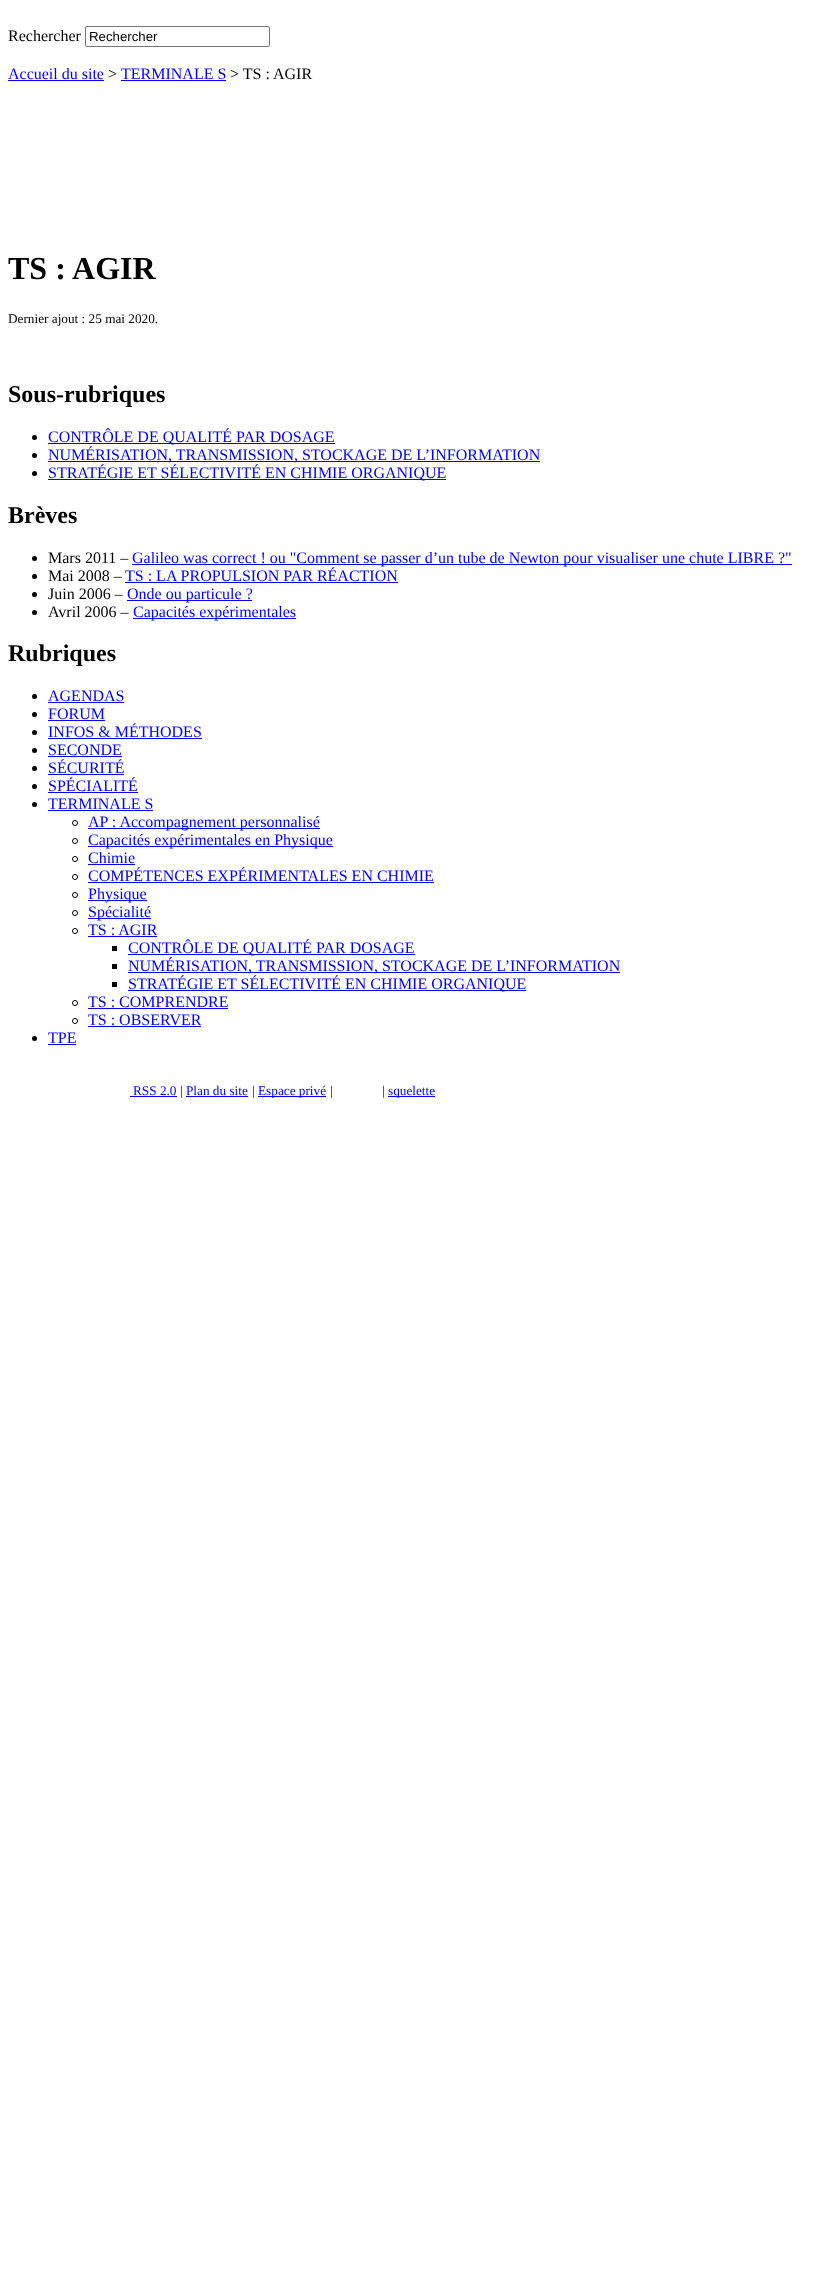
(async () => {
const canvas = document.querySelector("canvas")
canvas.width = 835
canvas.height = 2282
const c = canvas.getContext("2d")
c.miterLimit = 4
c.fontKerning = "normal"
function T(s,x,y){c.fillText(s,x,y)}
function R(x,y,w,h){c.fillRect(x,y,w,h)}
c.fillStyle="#fff"
R(0,0,835,2282)
c.font="16px Liberation Serif"
c.fillStyle="#000"
T("Rechercher",8,41)
c.beginPath()
c.roundRect(85.5,26.5,184,20,1.5)
c.strokeStyle="#767676"
c.stroke()
c.font="13.25px Liberation Sans"
T("Rechercher",89,41)
c.font="16px Liberation Serif"
c.fillStyle="#00e"
T("Accueil du site",8,79)
R(8,80,96,1)
c.fillStyle="#000"
T(">",108,79)
c.fillStyle="#00e"
T("TERMINALE S",121,79)
R(121,80,105,1)
c.fillStyle="#000"
T("> TS : AGIR",230,79)
c.font="bold 32px Liberation Serif"
T("TS : AGIR",8,279)
c.font="13.25px Liberation Serif"
T("Dernier ajout : 25 mai 2020.",8,323)
c.font="bold 24px Liberation Serif"
T("Sous-rubriques",8,402)
c.beginPath()
c.arc(34.5,437.5,2.5,0,7)
c.fill()
c.fillStyle="#00e"
R(48,443,287,1)
c.font="16px Liberation Serif"
T("CONTRÔLE DE QUALITÉ PAR DOSAGE",48,442)
c.fillStyle="#000"
c.beginPath()
c.arc(34.5,455.5,2.5,0,7)
c.fill()
c.fillStyle="#00e"
R(48,461,492,1)
T("NUMÉRISATION, TRANSMISSION, STOCKAGE DE L’INFORMATION",48,460)
c.fillStyle="#000"
c.beginPath()
c.arc(34.5,473.5,2.5,0,7)
c.fill()
c.fillStyle="#00e"
R(48,479,398,1)
T("STRATÉGIE ET SÉLECTIVITÉ EN CHIMIE ORGANIQUE",48,478)
c.font="bold 24px Liberation Serif"
c.fillStyle="#000"
T("Brèves",8,523)
c.beginPath()
c.arc(34.5,558.5,2.5,0,7)
c.fill()
c.font="16px Liberation Serif"
T("Mars 2011 –",48,563)
c.fillStyle="#00e"
R(132,564,660,1)
T("Galileo was correct ! ou \"Comment se passer d’un tube de Newton pour visualiser une chute LIBRE ?\"",132,563)
c.fillStyle="#000"
c.beginPath()
c.arc(34.5,576.5,2.5,0,7)
c.fill()
T("Mai 2008 –",48,581)
c.fillStyle="#00e"
T("TS : LA PROPULSION PAR RÉACTION",125,581)
R(125,582,273,1)
c.fillStyle="#000"
c.beginPath()
c.arc(34.5,594.5,2.5,0,7)
c.fill()
T("Juin 2006 –",48,599)
c.fillStyle="#00e"
R(127,600,125,1)
T("Onde ou particule ?",127,599)
c.fillStyle="#000"
c.beginPath()
c.arc(34.5,612.5,2.5,0,7)
c.fill()
T("Avril 2006 –",48,617)
c.fillStyle="#00e"
R(133,618,163,1)
T("Capacités expérimentales",133,617)
c.font="bold 24px Liberation Serif"
c.fillStyle="#000"
T("Rubriques",8,661)
c.beginPath()
c.arc(34.5,696.5,2.5,0,7)
c.fill()
c.font="16px Liberation Serif"
c.fillStyle="#00e"
T("AGENDAS",48,701)
R(48,702,76,1)
c.fillStyle="#000"
c.beginPath()
c.arc(34.5,714.5,2.5,0,7)
c.fill()
c.fillStyle="#00e"
T("FORUM",48,719)
R(48,720,57,1)
c.fillStyle="#000"
c.beginPath()
c.arc(34.5,732.5,2.5,0,7)
c.fill()
c.fillStyle="#00e"
T("INFOS & MÉTHODES",48,737)
R(48,738,154,1)
c.fillStyle="#000"
c.beginPath()
c.arc(34.5,750.5,2.5,0,7)
c.fill()
c.fillStyle="#00e"
T("SECONDE",48,755)
R(48,756,74,1)
c.fillStyle="#000"
c.beginPath()
c.arc(34.5,768.5,2.5,0,7)
c.fill()
c.fillStyle="#00e"
T("SÉCURITÉ",48,773)
R(48,774,76,1)
c.fillStyle="#000"
c.beginPath()
c.arc(34.5,786.5,2.5,0,7)
c.fill()
c.fillStyle="#00e"
T("SPÉCIALITÉ",48,791)
R(48,792,90,1)
c.fillStyle="#000"
c.beginPath()
c.arc(34.5,804.5,2.5,0,7)
c.fill()
c.fillStyle="#00e"
T("TERMINALE S",48,809)
R(48,810,105,1)
c.beginPath()
c.arc(75,823,2.5,0,7)
c.strokeStyle="#000"
c.stroke()
R(88,828,232,1)
T("AP : Accompagnement personnalisé",88,827)
c.beginPath()
c.arc(75,841,2.5,0,7)
c.stroke()
R(88,846,245,1)
T("Capacités expérimentales en Physique",88,845)
c.beginPath()
c.arc(75,859,2.5,0,7)
c.stroke()
T("Chimie",88,863)
R(88,864,47,1)
c.beginPath()
c.arc(75,877,2.5,0,7)
c.stroke()
T("COMPÉTENCES EXPÉRIMENTALES EN CHIMIE",88,881)
R(88,882,346,1)
c.beginPath()
c.arc(75,895,2.5,0,7)
c.stroke()
R(88,900,59,1)
T("Physique",88,899)
c.beginPath()
c.arc(75,913,2.5,0,7)
c.stroke()
R(88,918,63,1)
T("Spécialité",88,917)
c.beginPath()
c.arc(75,931,2.5,0,7)
c.stroke()
T("TS : AGIR",88,935)
R(88,936,69,1)
c.fillStyle="#000"
R(112,946,5,5)
c.fillStyle="#00e"
R(128,954,287,1)
T("CONTRÔLE DE QUALITÉ PAR DOSAGE",128,953)
c.fillStyle="#000"
R(112,964,5,5)
c.fillStyle="#00e"
R(128,972,492,1)
T("NUMÉRISATION, TRANSMISSION, STOCKAGE DE L’INFORMATION",128,971)
c.fillStyle="#000"
R(112,982,5,5)
c.fillStyle="#00e"
R(128,990,398,1)
T("STRATÉGIE ET SÉLECTIVITÉ EN CHIMIE ORGANIQUE",128,989)
c.beginPath()
c.arc(75,1003,2.5,0,7)
c.stroke()
T("TS : COMPRENDRE",88,1007)
R(88,1008,140,1)
c.beginPath()
c.arc(75,1021,2.5,0,7)
c.stroke()
T("TS : OBSERVER",88,1025)
R(88,1026,113,1)
c.fillStyle="#000"
c.beginPath()
c.arc(34.5,1038.5,2.5,0,7)
c.fill()
c.fillStyle="#00e"
T("TPE",48,1043)
R(48,1044,28,1)
c.font="13.25px Liberation Serif"
T("RSS 2.0",133,1095)
R(130,1096,47,1)
c.fillStyle="#000"
T("|",180,1095)
c.fillStyle="#00e"
T("Plan du site",186,1095)
R(186,1096,62,1)
c.fillStyle="#000"
T("|",252,1095)
c.fillStyle="#00e"
R(258,1096,68,1)
T("Espace privé",258,1095)
c.fillStyle="#000"
T("|",330,1095)
T("|",382,1095)
c.fillStyle="#00e"
R(388,1096,47,1)
T("squelette",388,1095)
})()
